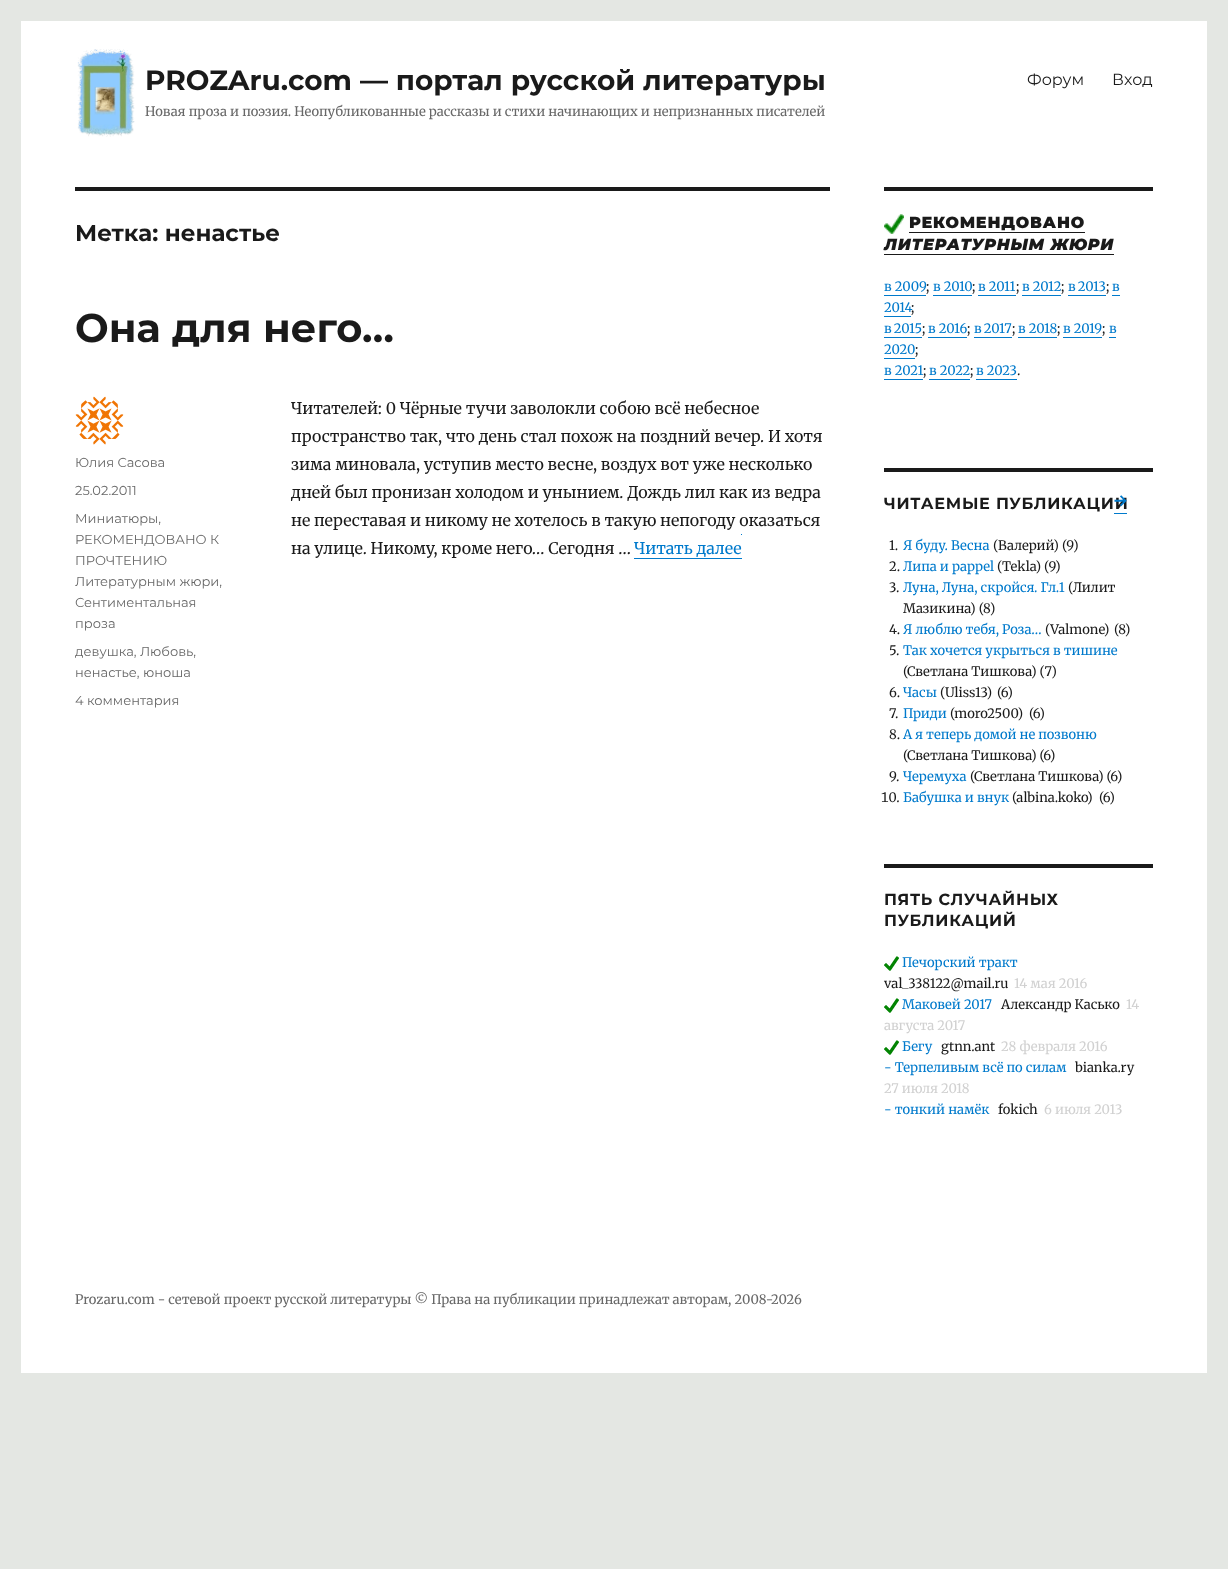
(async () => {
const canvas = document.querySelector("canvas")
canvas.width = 1228
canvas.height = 1569
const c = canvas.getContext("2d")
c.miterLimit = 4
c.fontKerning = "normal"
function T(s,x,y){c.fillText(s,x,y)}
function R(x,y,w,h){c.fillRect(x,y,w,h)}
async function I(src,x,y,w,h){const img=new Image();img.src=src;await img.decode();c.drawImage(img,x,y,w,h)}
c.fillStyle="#e4e7e3"
R(0,0,1228,1569)
c.fillStyle="#fff"
R(21,21,1186,1352)
await I("1.png",77,49,58,88)
c.font="bold 28px Montserrat"
c.fillStyle="#1a1a1a"
T("PROZAru.com — портал русской литературы",145,90)
c.font="13px Merriweather"
c.fillStyle="#686868"
T("Новая проза и поэзия. Неопубликованные рассказы и стихи начинающих и непризнанных писателей",145,116)
c.font="16px Montserrat"
c.fillStyle="#1a1a1a"
T("Форум",1027,85)
T("Вход",1112,85)
R(75,187,755,4)
c.font="bold 23px Montserrat"
T("Метка: ненастье",75,241)
c.font="bold 40px Montserrat"
T("Она для него…",75,342)
await I("2.png",75,396,49,49)
c.font="13px Montserrat"
c.fillStyle="#686868"
T("Юлия Сасова",75,467)
T("25.02.2011",75,495)
T("Миниатюры,",75,523)
T("РЕКОМЕНДОВАНО К",75,544)
T("ПРОЧТЕНИЮ",75,565)
T("Литературным жюри,",75,586)
T("Сентиментальная",75,607)
T("проза",75,628)
T("девушка, Любовь,",75,656)
T("ненастье, юноша",75,677)
T("4 комментария",75,705)
c.font="16px Merriweather"
c.fillStyle="#1a1a1a"
T("Читателей: 0 Чёрные тучи заволокли собою всё небесное",291,414)
T("пространство так, что день стал похож на поздний вечер. И хотя",291,442)
T("зима миновала, уступив место весне, воздух вот уже несколько",291,470)
T("дней был пронизан холодом и унынием. Дождь лил как из ведра",291,498)
T("не переставая и никому не хотелось в такую непогоду оказаться",291,526)
T("на улице. Никому, кроме него… Сегодня …",291,554)
c.fillStyle="#007acc"
T("Читать далее",634,554)
R(634,558,108,1)
R(741,534,1,1)
c.fillStyle="#1a1a1a"
R(884,187,269,4)
await I("3.png",884,214,20,20)
c.letterSpacing="0.75px"
c.font="900 16px Montserrat"
T("РЕКОМЕНДОВАНО",909,228)
R(909,232,176,1)
c.font="italic 900 16px Montserrat"
T("ЛИТЕРАТУРНЫМ ЖЮРИ",884,250)
R(884,254,230,1)
c.letterSpacing="0px"
c.font="13px Merriweather"
c.fillStyle="#007acc"
T("в 2009",884,291)
R(884,295,42,1)
c.fillStyle="#1a1a1a"
T(";",926,291)
c.fillStyle="#007acc"
T("в 2010",933,291)
R(933,295,39,1)
c.fillStyle="#1a1a1a"
T(";",972,291)
c.fillStyle="#007acc"
T("в 2011",978,291)
R(978,295,38,1)
c.fillStyle="#1a1a1a"
T(";",1016,291)
c.fillStyle="#007acc"
T("в 2012",1022,291)
R(1022,295,39,1)
c.fillStyle="#1a1a1a"
T(";",1061,291)
c.wordSpacing="-1px"
c.fillStyle="#007acc"
T("в 2013",1068,291)
R(1068,295,38,1)
c.wordSpacing="0px"
c.fillStyle="#1a1a1a"
T(";",1106,291)
c.fillStyle="#007acc"
T("в",1112,291)
R(1112,295,8,1)
T("2014",884,312)
R(884,316,27,1)
c.fillStyle="#1a1a1a"
T(";",911,312)
c.wordSpacing="-1px"
c.fillStyle="#007acc"
T("в 2015",884,333)
R(884,337,38,1)
c.wordSpacing="0px"
c.fillStyle="#1a1a1a"
T(";",922,333)
c.fillStyle="#007acc"
T("в 2016",928,333)
R(928,337,39,1)
c.fillStyle="#1a1a1a"
T(";",967,333)
c.wordSpacing="-1px"
c.fillStyle="#007acc"
T("в 2017",974,333)
R(974,337,38,1)
c.wordSpacing="0px"
c.fillStyle="#1a1a1a"
T(";",1012,333)
c.fillStyle="#007acc"
T("в 2018",1018,333)
R(1018,337,39,1)
c.fillStyle="#1a1a1a"
T(";",1057,333)
c.fillStyle="#007acc"
T("в 2019",1063,333)
R(1063,337,39,1)
c.fillStyle="#1a1a1a"
T(";",1102,333)
c.fillStyle="#007acc"
T("в",1109,333)
R(1109,337,7,1)
T("2020",884,354)
R(884,358,31,1)
c.fillStyle="#1a1a1a"
T(";",915,354)
c.fillStyle="#007acc"
T("в 2021",884,375)
R(884,379,39,1)
c.fillStyle="#1a1a1a"
T(";",923,375)
c.fillStyle="#007acc"
T("в 2022",929,375)
R(929,379,41,1)
c.fillStyle="#1a1a1a"
T(";",970,375)
c.fillStyle="#007acc"
T("в 2023",976,375)
R(976,379,41,1)
c.fillStyle="#1a1a1a"
T(".",1017,375)
c.letterSpacing="0.75px"
c.font="bold 16px Montserrat"
T("ЧИТАЕМЫЕ ПУБЛИКАЦИИ",884,509)
c.letterSpacing="0px"
c.font="bold 19px Merriweather"
c.fillStyle="#007acc"
T("→",1114,508)
R(1114,513,13,1)
c.fillStyle="#1a1a1a"
R(884,468,269,4)
c.font="13px Merriweather"
T("1.",889,550)
c.fillStyle="#007acc"
T("Я буду. Весна",903,550)
c.fillStyle="#1a1a1a"
T("(Валерий) (9)",993,550)
T("2.",889,571)
c.fillStyle="#007acc"
T("Липа и pappel",903,571)
c.fillStyle="#1a1a1a"
T("(Tekla) (9)",997,571)
T("3.",889,592)
c.fillStyle="#007acc"
T("Луна, Луна, скройся. Гл.1",903,592)
c.fillStyle="#1a1a1a"
T("(Лилит",1068,592)
T("Мазикина) (8)",903,613)
T("4.",889,634)
c.fillStyle="#007acc"
T("Я люблю тебя, Роза…",903,634)
c.fillStyle="#1a1a1a"
T("(Valmone)",1045,634)
T("(8)",1114,634)
T("5.",889,655)
c.fillStyle="#007acc"
T("Так хочется укрыться в тишине",903,655)
c.fillStyle="#1a1a1a"
T("(Светлана Тишкова) (7)",903,676)
T("6.",889,697)
c.fillStyle="#007acc"
T("Часы",903,697)
c.fillStyle="#1a1a1a"
T("(Uliss13)",940,697)
T("(6)",997,697)
T("7.",889,718)
c.fillStyle="#007acc"
T("Приди",903,718)
c.fillStyle="#1a1a1a"
T("(moro2500)",950,718)
T("(6)",1029,718)
T("8.",889,739)
c.fillStyle="#007acc"
T("А я теперь домой не позвоню",903,739)
c.fillStyle="#1a1a1a"
T("(Светлана Тишкова) (6)",903,760)
T("9.",889,781)
c.fillStyle="#007acc"
T("Черемуха",903,781)
c.fillStyle="#1a1a1a"
T("(Светлана Тишкова) (6)",970,781)
c.font="13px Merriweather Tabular"
T("10.",881,802)
c.font="13px Merriweather"
c.fillStyle="#007acc"
T("Бабушка и внук",903,802)
c.fillStyle="#1a1a1a"
T("(albina.koko)",1012,802)
T("(6)",1099,802)
R(884,864,269,4)
c.letterSpacing="0.75px"
c.font="bold 16px Montserrat"
T("ПЯТЬ СЛУЧАЙНЫХ",884,905)
T("ПУБЛИКАЦИЙ",884,926)
await I("4.png",884,956,15,15)
c.letterSpacing="0px"
c.font="13px Merriweather"
c.fillStyle="#007acc"
T("Печорский тракт",902,967)
c.fillStyle="#1a1a1a"
T("val_338122@mail.ru",884,988)
c.fillStyle="#d1d1d1"
T("14 мая 2016",1014,988)
await I("4.png",884,998,15,15)
c.fillStyle="#007acc"
T("Маковей 2017",902,1009)
c.fillStyle="#1a1a1a"
T("Александр Касько",1001,1009)
c.fillStyle="#d1d1d1"
T("14",1126,1009)
T("августа 2017",884,1030)
await I("4.png",884,1040,15,15)
c.fillStyle="#007acc"
T("Бегу",902,1051)
c.fillStyle="#1a1a1a"
T("gtnn.ant",941,1051)
c.fillStyle="#d1d1d1"
T("28 февраля 2016",1001,1051)
c.fillStyle="#007acc"
T("- Терпеливым всё по силам",884,1072)
c.fillStyle="#1a1a1a"
T("bianka.ry",1075,1072)
c.fillStyle="#d1d1d1"
T("27 июля 2018",884,1093)
c.fillStyle="#007acc"
T("- тонкий намёк",884,1114)
c.fillStyle="#1a1a1a"
T("fokich",998,1114)
c.fillStyle="#d1d1d1"
T("6 июля 2013",1044,1114)
c.fillStyle="#686868"
T("Prozaru.com - сетевой проект русской литературы © Права на публикации принадлежат авторам, 2008-2026",75,1304)
})()
